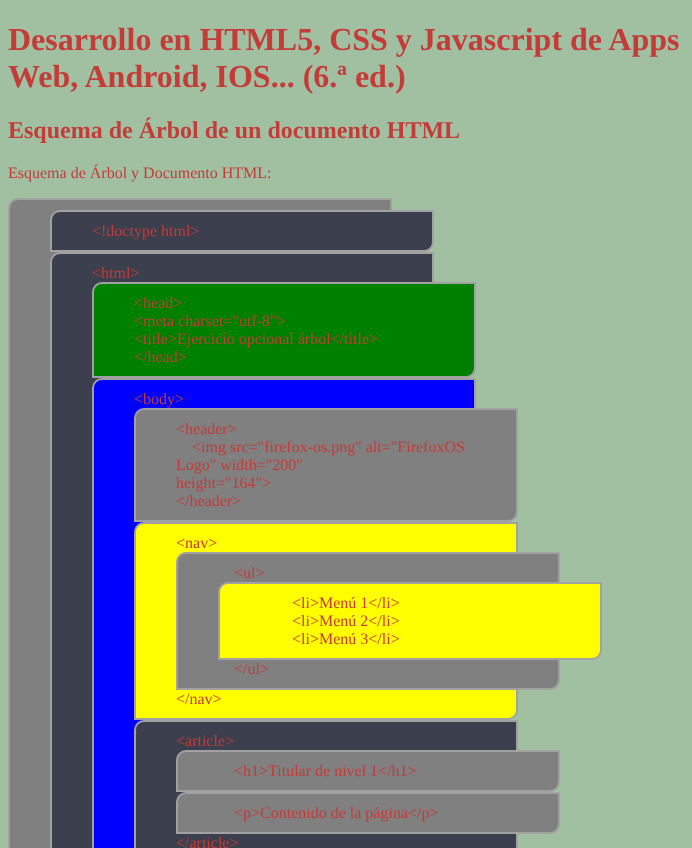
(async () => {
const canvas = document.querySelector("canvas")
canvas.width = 692
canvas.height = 848
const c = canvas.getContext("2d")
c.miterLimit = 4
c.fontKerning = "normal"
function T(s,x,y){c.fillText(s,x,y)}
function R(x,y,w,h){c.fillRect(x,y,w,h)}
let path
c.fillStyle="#a1c0a2"
R(0,0,692,848)
c.font="bold 32px Liberation Serif"
c.fillStyle="#c43b37"
T("Desarrollo en HTML5, CSS y Javascript de Apps",8,50)
T("Web, Android, IOS... (6.ª ed.)",8,87)
c.font="bold 24px Liberation Serif"
T("Esquema de Árbol de un documento HTML",8,138)
c.font="16px Liberation Serif"
T("Esquema de Árbol y Documento HTML:",8,178)
c.fillStyle="#808080"
path = new Path2D("M18 199h373v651c0 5-4 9-9 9h-373v-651c0-5 4-9 9-9z")
c.fill(path)
c.strokeStyle="#a1a1a1"
c.lineWidth=2
c.stroke(path)
c.fillStyle="#3b3f4e"
c.beginPath()
c.roundRect(51,211,382,40,[9,0,9,0])
c.fill()
c.stroke()
c.fillStyle="#c43b37"
T("<!doctype html>",92,236)
c.fillStyle="#3b3f4e"
path = new Path2D("M60 253h373v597c0 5-4 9-9 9h-373v-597c0-5 4-9 9-9z")
c.fill(path)
c.stroke(path)
c.fillStyle="#c43b37"
T("<html>",92,278)
c.fillStyle="#008000"
c.beginPath()
c.roundRect(93,283,382,94,[9,0,9,0])
c.fill()
c.stroke()
c.fillStyle="#c43b37"
T("<head>",134,308)
T("<meta charset=\"utf-8\">",134,326)
T("<title>Ejercicio opcional árbol<\/title>",134,344)
T("<\/head>",134,362)
c.fillStyle="#00f"
path = new Path2D("M102 379h373v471c0 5-4 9-9 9h-373v-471c0-5 4-9 9-9z")
c.fill(path)
c.stroke(path)
c.fillStyle="#c43b37"
T("<body>",134,404)
c.fillStyle="#808080"
c.beginPath()
c.roundRect(135,409,382,112,[9,0,9,0])
c.fill()
c.stroke()
c.fillStyle="#c43b37"
T("<header>",176,434)
T("<img src=\"firefox-os.png\" alt=\"FirefoxOS",192,452)
T("Logo\" width=\"200\"",176,470)
T("height=\"164\">",176,488)
T("<\/header>",176,506)
c.fillStyle="#ff0"
c.beginPath()
c.roundRect(135,523,382,196,[9,0,9,0])
c.fill()
c.stroke()
c.fillStyle="#c43b37"
T("<nav>",176,548)
c.fillStyle="#808080"
c.beginPath()
c.roundRect(177,553,382,136,[9,0,9,0])
c.fill()
c.stroke()
c.fillStyle="#c43b37"
T("<ul>",234,578)
c.fillStyle="#ff0"
c.beginPath()
c.roundRect(219,583,382,76,[9,0,9,0])
c.fill()
c.stroke()
c.fillStyle="#c43b37"
T("<li>Menú 1<\/li>",292,608)
T("<li>Menú 2<\/li>",292,626)
T("<li>Menú 3<\/li>",292,644)
T("<\/ul>",234,674)
T("<\/nav>",176,704)
c.fillStyle="#3b3f4e"
path = new Path2D("M144 721h373v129c0 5-4 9-9 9h-373v-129c0-5 4-9 9-9z")
c.fill(path)
c.stroke(path)
c.fillStyle="#c43b37"
T("<article>",176,746)
c.fillStyle="#808080"
c.beginPath()
c.roundRect(177,751,382,40,[9,0,9,0])
c.fill()
c.stroke()
c.fillStyle="#c43b37"
T("<h1>Titular de nivel 1<\/h1>",234,776)
c.fillStyle="#808080"
c.beginPath()
c.roundRect(177,793,382,40,[9,0,9,0])
c.fill()
c.stroke()
c.fillStyle="#c43b37"
T("<p>Contenido de la página<\/p>",234,818)
T("<\/article>",176,848)
})()
